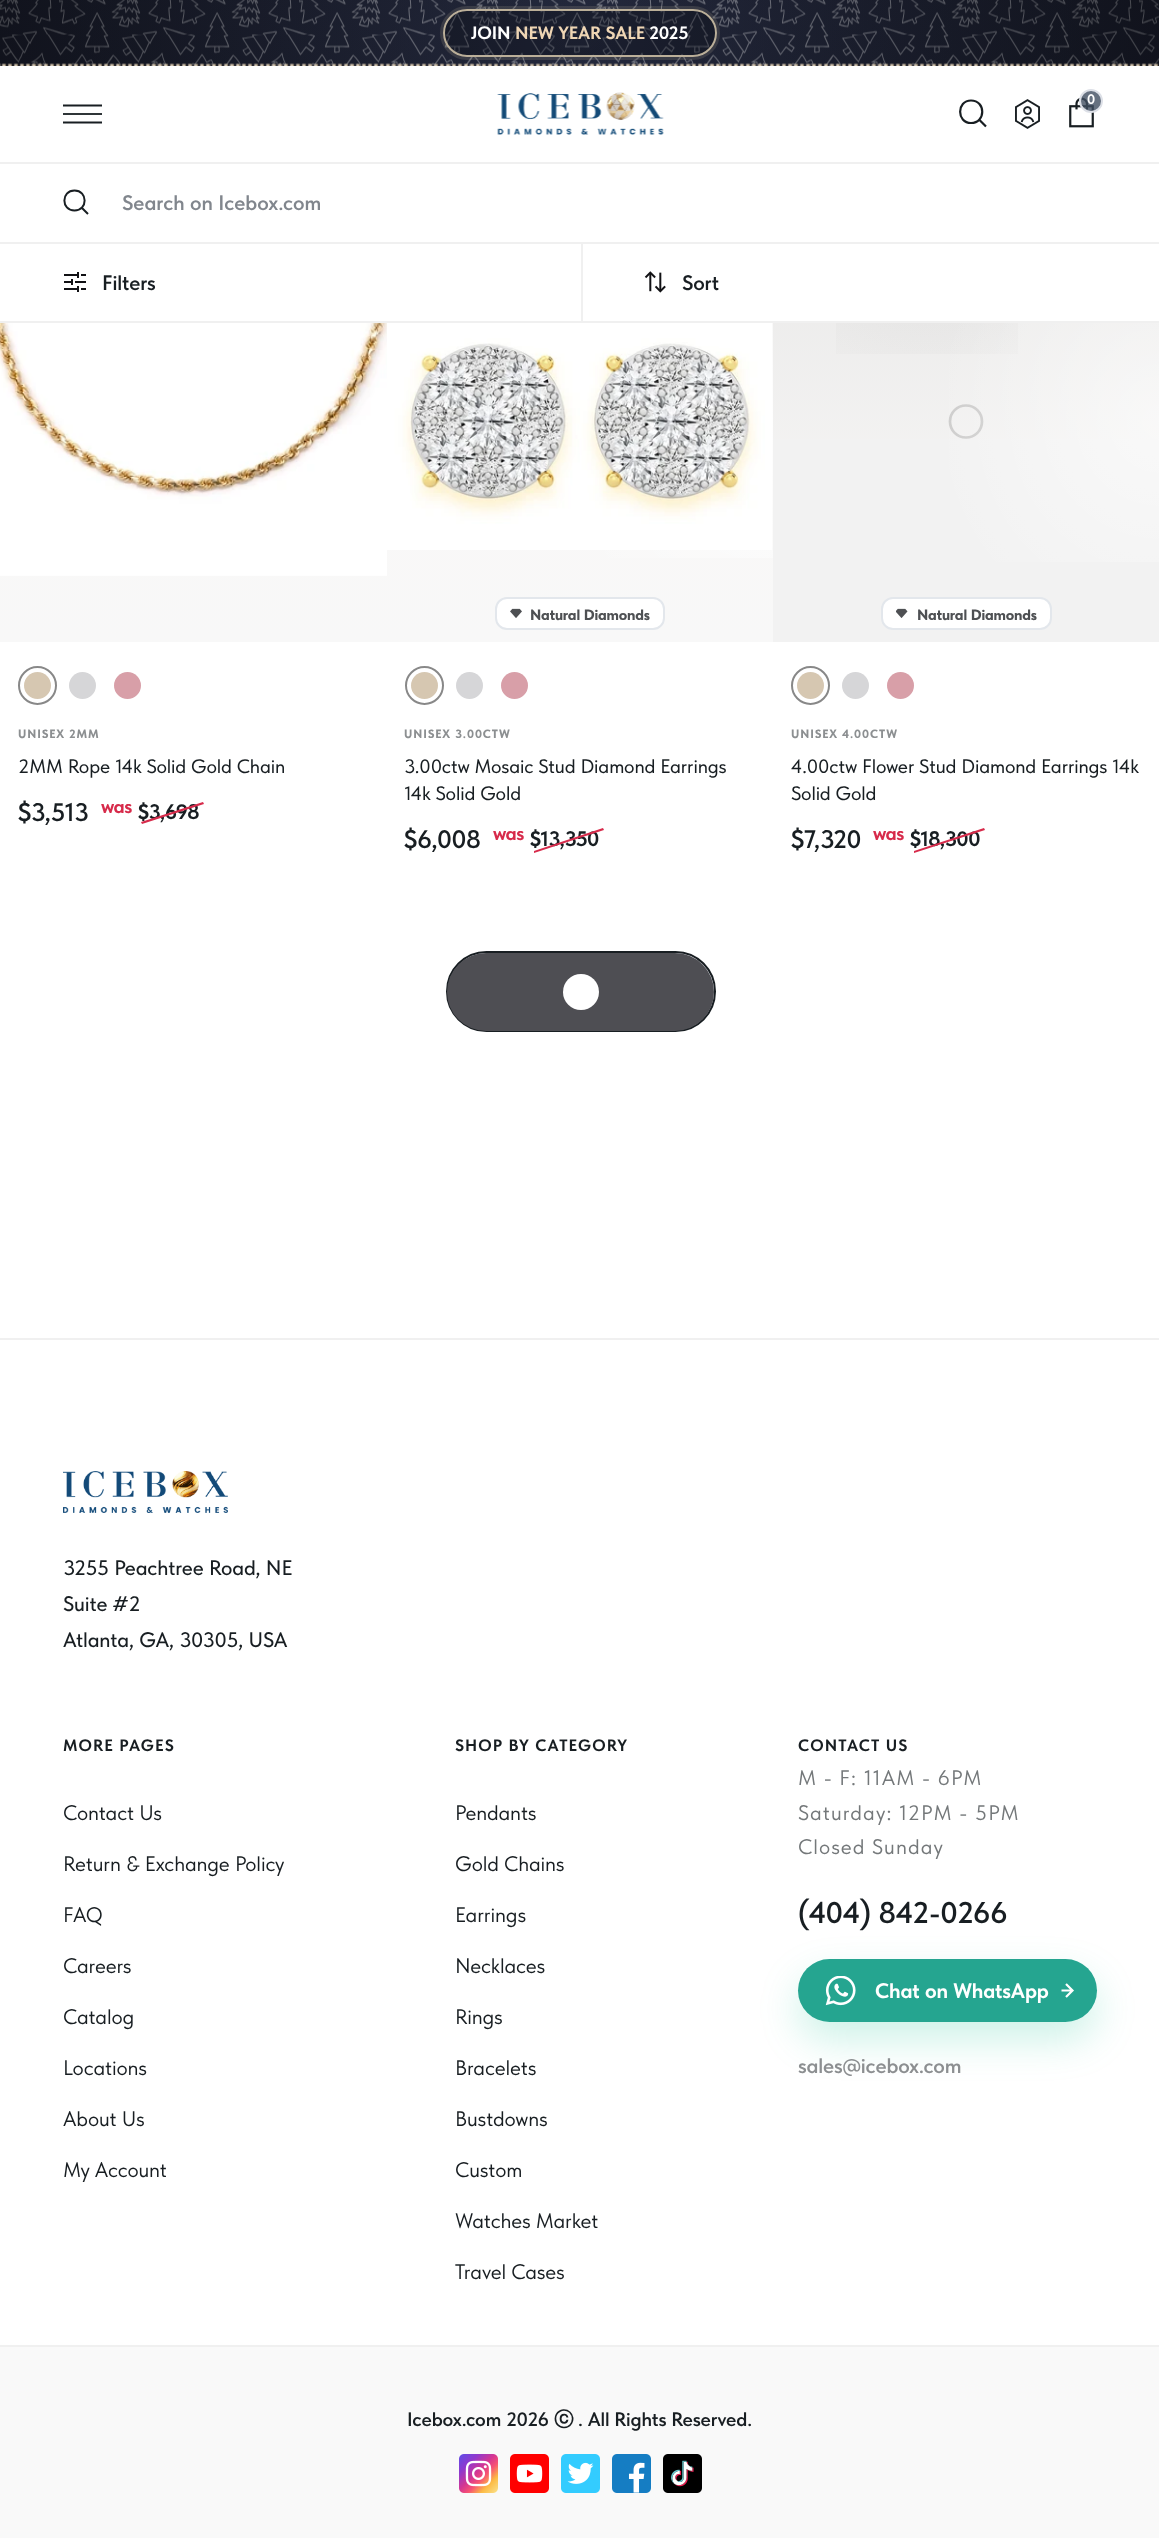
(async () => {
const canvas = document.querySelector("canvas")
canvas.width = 1159
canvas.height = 2538
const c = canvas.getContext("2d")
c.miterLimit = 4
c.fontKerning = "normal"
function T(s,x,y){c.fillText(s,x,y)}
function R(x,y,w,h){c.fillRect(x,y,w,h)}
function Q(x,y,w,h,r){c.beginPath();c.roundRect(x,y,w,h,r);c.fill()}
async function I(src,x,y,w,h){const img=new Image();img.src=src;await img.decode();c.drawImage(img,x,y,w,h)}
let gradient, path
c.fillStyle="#fff"
R(0,0,1159,2538)
c.fillStyle="#f2f2f2"
R(773,323,386,319)
gradient = c.createRadialGradient(580,33,0,580,33,581)
gradient.addColorStop(0,"#24293d")
gradient.addColorStop(1,"#181b29")
c.fillStyle = gradient
R(0,0,1159,66)
await I("1.png",0,0,1159,66)
gradient = c.createRadialGradient(580,33,0,580,33,581)
gradient.addColorStop(0,"#06070a00")
gradient.addColorStop(1,"#06070a66")
c.fillStyle = gradient
R(0,0,1159,66)
c.beginPath()
c.roundRect(441.5,7.5,277,51,25.5)
c.strokeStyle="#f3deb721"
c.lineWidth=3
c.stroke()
c.fillStyle="#0a0e155c"
c.beginPath()
c.roundRect(444,10,272,46,23)
c.fill()
c.strokeStyle="#bbaf99"
c.lineWidth=2
c.stroke()
c.letterSpacing="-0.15px"
c.font="italic bold 18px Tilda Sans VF"
c.fillStyle="#fff"
T("JOIN",471,39)
c.fillStyle="#eed5b4"
T("NEW YEAR SALE",515,39)
c.fillStyle="#fff"
T("2025",649,39)
await I("2.png",0,63,1159,3)
await I("3.png",497,92,167,43)
path = new Path2D("M971 123c15 0 15-22.5 0-22.5c-14.5 0-14.5 22.5 0 22.5zm15 3.5l-6.5-6.5")
c.strokeStyle="#181e22"
c.lineWidth=2.2
c.stroke(path)
await I("4.png",1015,99,25,30)
await I("5.png",1069,97,25,31)
c.fillStyle="#404e60cc"
c.beginPath()
c.arc(1091,101,11,0,7)
c.fill()
c.strokeStyle="#dde0e7"
c.lineWidth=2
c.stroke()
c.font="italic bold 14px Tilda Sans VF"
c.fillStyle="#fff"
T("0",1087,104)
c.fillStyle="#2f3538"
R(63,113,39,2)
path = new Path2D("M63 105.5h39m-39 17h39")
c.strokeStyle="#181e22"
c.lineWidth=1.8
c.stroke(path)
c.fillStyle="#f0f0f0"
R(0,162,1159,2)
path = new Path2D("M74.5 210.5c13.5 0 13.5-20 0-20c-13.5 0-13.5 20 0 20zm13.5 3.5l-6-6")
c.lineWidth=2
c.stroke(path)
c.letterSpacing="0px"
c.font="italic 600 21px Tilda Sans VF"
c.fillStyle="#81868d"
T("Search on Icebox.com",122,210)
c.fillStyle="#f0f0f0"
R(0,242,1159,2)
R(0,321,1159,2)
await I("6.png",64,272,22,20)
c.letterSpacing="-0.15px"
c.fillStyle="#181e22"
T("Filters",102,290)
c.fillStyle="#f0f0f0"
R(581,243,2,78)
await I("7.png",644,271,22,22)
c.fillStyle="#181e22"
T("Sort",682,290)
gradient = c.createLinearGradient(193,201,194,642)
gradient.addColorStop(0,"#ededec")
gradient.addColorStop(.14,"#f1f0f0")
gradient.addColorStop(.6,"#f9f8f7")
gradient.addColorStop(1,"#f8f8f8")
c.fillStyle = gradient
R(0,575,387,67)
await I("8.png",0,323,387,253)
c.beginPath()
c.arc(37.5,685.5,18.5,0,7)
c.strokeStyle="#888"
c.stroke()
c.fillStyle="#d6c7b1"
c.beginPath()
c.arc(37.5,685.5,13.5,0,7)
c.fill()
c.fillStyle="#d6d6d8"
c.beginPath()
c.arc(82.5,685.5,13.5,0,7)
c.fill()
c.fillStyle="#d89fa8"
c.beginPath()
c.arc(127.5,685.5,13.5,0,7)
c.fill()
c.letterSpacing="0.9px"
c.font="italic 800 12px Tilda Sans VF"
c.fillStyle="#8c8f91"
T("UNISEX 2MM",18,738)
c.letterSpacing="-0.15px"
c.font="italic 19.5px Tilda Sans VF"
c.fillStyle="#181e22"
T("2MM Rope 14k Solid Gold Chain",18,773)
c.letterSpacing="-0.5px"
c.font="italic 600 25.5px Tilda Sans VF"
T("$3,513",18,821)
c.font="italic bold 21px Tilda Sans VF"
T("$3,698",138,819)
c.font="italic bold 19.5px Tilda Sans VF"
c.fillStyle="#d72b4b"
T("was",101,813)
path = new Path2D("M141 822l62-20l1 2l-62 20z")
c.fill(path)
gradient = c.createLinearGradient(580,201,580,642)
gradient.addColorStop(0,"#ededec")
gradient.addColorStop(.14,"#f1f0f0")
gradient.addColorStop(.6,"#f9f8f7")
gradient.addColorStop(1,"#f8f8f8")
c.fillStyle = gradient
R(387,323,386,319)
gradient = c.createRadialGradient(773,422,0,773,422,386)
gradient.addColorStop(0,"#ffffffe6")
gradient.addColorStop(.6,"#ffffff00")
c.fillStyle = gradient
R(605,323,168,235)
await I("9.png",387,323,385,227)
c.fillStyle="#fff"
c.beginPath()
c.roundRect(496,598,168,31,11)
c.fill()
c.strokeStyle="#e3e7ec"
c.stroke()
await I("10.png",510,608,12,10)
c.letterSpacing="-0.15px"
c.font="italic 800 15px Tilda Sans VF"
c.fillStyle="#4e5053"
T("Natural Diamonds",530,620)
c.beginPath()
c.arc(424.5,685.5,18.5,0,7)
c.strokeStyle="#888"
c.stroke()
c.fillStyle="#d6c7b1"
c.beginPath()
c.arc(424.5,685.5,13.5,0,7)
c.fill()
c.fillStyle="#d6d6d8"
c.beginPath()
c.arc(469.5,685.5,13.5,0,7)
c.fill()
c.fillStyle="#d89fa8"
c.beginPath()
c.arc(514.5,685.5,13.5,0,7)
c.fill()
c.letterSpacing="0.9px"
c.font="italic 800 12px Tilda Sans VF"
c.fillStyle="#8c8f91"
T("UNISEX 3.00CTW",404,738)
c.letterSpacing="-0.15px"
c.font="italic 19.5px Tilda Sans VF"
c.fillStyle="#181e22"
T("3.00ctw Mosaic Stud Diamond Earrings",404,773)
T("14k Solid Gold",404,800)
c.letterSpacing="-0.5px"
c.font="italic 600 25.5px Tilda Sans VF"
T("$6,008",404,848)
c.font="italic bold 21px Tilda Sans VF"
T("$13,350",530,846)
c.fillStyle="#d72b4b"
path = new Path2D("M534 851l69-23l1 2l-70 23z")
c.fill(path)
c.font="italic bold 19.5px Tilda Sans VF"
T("was",493,840)
path = new Path2D("M950 421.5c0-9 7-16 16-16c9 0 16 7 16 16c0 9-7 16-16 16c-9 0-16-7-16-16")
c.strokeStyle="#969696"
c.lineWidth=2.7
c.lineJoin="round"
c.stroke(path)
gradient = c.createLinearGradient(966,201,966,642)
gradient.addColorStop(0,"#e1e0df99")
gradient.addColorStop(.14,"#e7e6e599")
gradient.addColorStop(.6,"#f4f3f299")
gradient.addColorStop(1,"#f3f3f399")
c.fillStyle = gradient
R(773,323,386,116)
gradient = c.createRadialGradient(927,201,0,927,201,441)
gradient.addColorStop(0,"#34323112")
gradient.addColorStop(.5,"#34323100")
c.fillStyle = gradient
R(836,323,182,31)
gradient = c.createRadialGradient(1160,422,0,1160,422,387)
gradient.addColorStop(0,"#ffffff8a")
gradient.addColorStop(.6,"#ffffff00")
c.fillStyle = gradient
R(949,323,210,239)
c.fillStyle="#fff"
c.beginPath()
c.roundRect(882,598,169,31,11)
c.fill()
c.strokeStyle="#e3e7ec"
c.lineWidth=2
c.lineJoin="miter"
c.stroke()
await I("11.png",896,608,12,10)
c.letterSpacing="-0.15px"
c.font="italic 800 15px Tilda Sans VF"
c.fillStyle="#4e5053"
T("Natural Diamonds",917,620)
c.beginPath()
c.arc(810.5,685.5,18.5,0,7)
c.strokeStyle="#888"
c.stroke()
c.fillStyle="#d6c7b1"
c.beginPath()
c.arc(810.5,685.5,13.5,0,7)
c.fill()
c.fillStyle="#d6d6d8"
c.beginPath()
c.arc(855.5,685.5,13.5,0,7)
c.fill()
c.fillStyle="#d89fa8"
c.beginPath()
c.arc(900.5,685.5,13.5,0,7)
c.fill()
c.letterSpacing="0.9px"
c.font="italic 800 12px Tilda Sans VF"
c.fillStyle="#8c8f91"
T("UNISEX 4.00CTW",791,738)
c.letterSpacing="-0.15px"
c.font="italic 19.5px Tilda Sans VF"
c.fillStyle="#181e22"
T("4.00ctw Flower Stud Diamond Earrings 14k",791,773)
T("Solid Gold",791,800)
c.letterSpacing="-0.5px"
c.font="italic 600 25.5px Tilda Sans VF"
T("$7,320",791,848)
c.font="italic bold 21px Tilda Sans VF"
T("$18,300",910,846)
c.fillStyle="#d72b4b"
path = new Path2D("M914 851l70-23l1 2l-71 23z")
c.fill(path)
c.font="italic bold 19.5px Tilda Sans VF"
T("was",873,840)
c.fillStyle="#edf0f5"
c.beginPath()
c.roundRect(447,952,268,79,39.5)
c.fill()
c.strokeStyle="#181e22"
c.stroke()
c.fillStyle="#4e4e53"
Q(447,953,267,78,39)
c.fillStyle="#fff"
c.beginPath()
c.arc(581,992,18,0,7)
c.fill()
c.fillStyle="#f0f0f0"
R(0,1338,1159,2)
await I("12.png",63,1471,165,42)
c.letterSpacing="-0.15px"
c.font="italic 500 21px Tilda Sans VF"
c.fillStyle="#181e22"
T("3255 Peachtree Road, NE",63,1575)
T("Suite #2",63,1611)
T("Atlanta, GA, 30305, USA",63,1647)
c.letterSpacing="1.05px"
c.font="italic bold 16.5px Tilda Sans VF"
T("MORE PAGES",63,1751)
c.letterSpacing="-0.15px"
c.font="italic 21px 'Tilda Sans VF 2'"
T("Contact Us",63,1820)
T("Return & Exchange Policy",63,1871)
T("FAQ",63,1922)
T("Careers",63,1973)
T("Catalog",63,2024)
T("Locations",63,2075)
T("About Us",63,2126)
T("My Account",63,2177)
c.letterSpacing="1.05px"
c.font="italic bold 16.5px Tilda Sans VF"
T("SHOP BY CATEGORY",455,1751)
c.letterSpacing="-0.15px"
c.font="italic 21px 'Tilda Sans VF 2'"
T("Pendants",455,1820)
T("Gold Chains",455,1871)
T("Earrings",455,1922)
T("Necklaces",455,1973)
T("Rings",455,2024)
T("Bracelets",455,2075)
T("Bustdowns",455,2126)
T("Custom",455,2177)
T("Watches Market",455,2228)
T("Travel Cases",455,2279)
c.letterSpacing="1.05px"
c.font="italic bold 16.5px Tilda Sans VF"
T("CONTACT US",798,1751)
c.font="italic 21px 'Tilda Sans VF 2'"
c.fillStyle="#74787a"
T("M - F: 11AM - 6PM",798,1785)
T("Saturday: 12PM - 5PM",798,1820)
T("Closed Sunday",798,1854)
c.letterSpacing="-0.15px"
c.font="italic 600 30px Tilda Sans VF"
c.fillStyle="#181e22"
T("(404) 842-0266",798,1923)
c.fillStyle="#06c08e33"
c.filter="blur(19.5px)"
c.beginPath()
c.roundRect(798,1977,299,63,31.5)
c.fill()
c.filter="none"
c.fillStyle="#25a590"
Q(798,1959,299,63,31.5)
await I("13.png",825,1976,31,30)
c.font="italic bold 21px Tilda Sans VF"
c.fillStyle="#fff"
T("Chat on WhatsApp",875,1998)
path = new Path2D("M1061.5 1990.5h11m-6.5-6.5l6.5 6.5l-6.5 6.5")
c.strokeStyle="#fff"
c.lineWidth=2.2
c.stroke(path)
c.font="italic 600 21px Tilda Sans VF"
c.fillStyle="#8c8f91"
T("sales@icebox.com",798,2073)
c.fillStyle="#f9f9f9"
R(0,2347,1159,191)
c.fillStyle="#f0f0f0"
R(0,2345,1159,2)
c.font="italic 600 19.5px Tilda Sans VF"
c.fillStyle="#181e22"
T("Icebox.com 2026",407,2426)
c.font="bold 19.5px WenQuanYi Zen Hei"
T("ⓒ",554,2426)
c.font="italic 600 19.5px Tilda Sans VF"
T(". All Rights Reserved.",578,2426)
await I("14.png",459,2454,39,39)
await I("15.png",510,2454,39,39)
await I("16.png",561,2454,39,39)
await I("17.png",612,2454,39,39)
await I("18.png",663,2454,39,39)
})()
